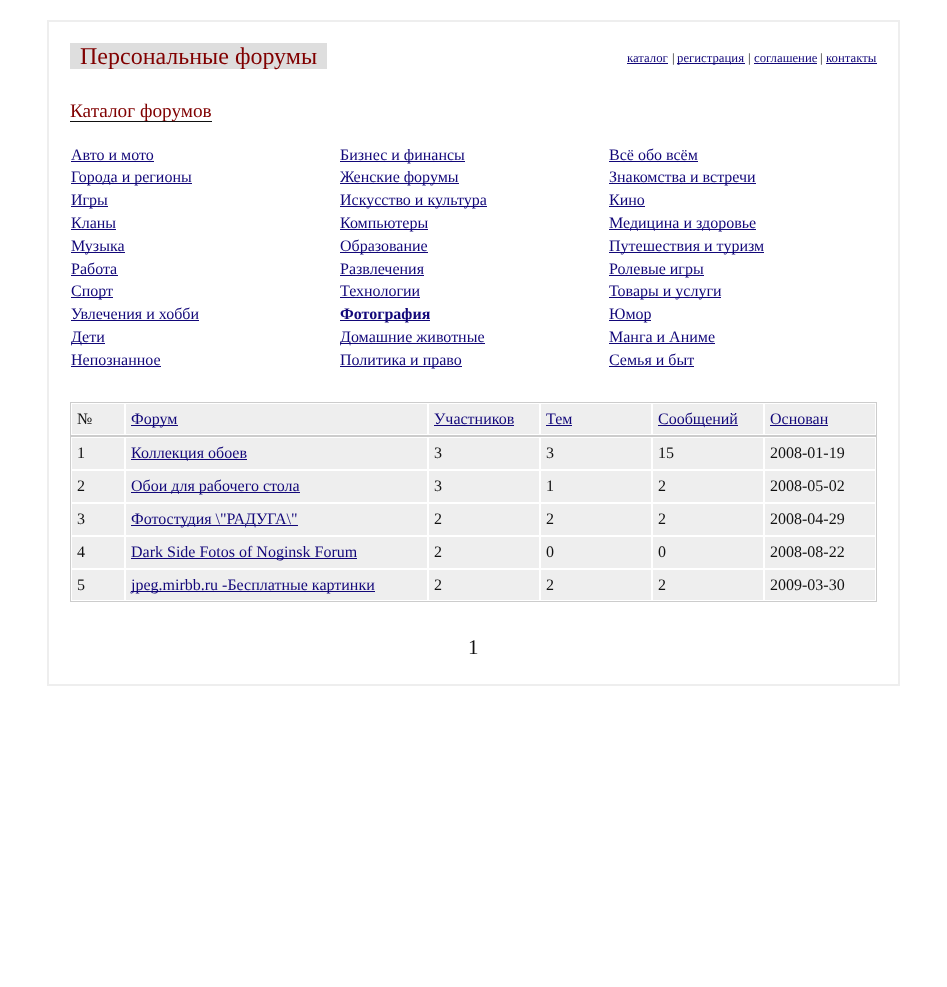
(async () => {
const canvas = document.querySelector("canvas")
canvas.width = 947
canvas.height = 987
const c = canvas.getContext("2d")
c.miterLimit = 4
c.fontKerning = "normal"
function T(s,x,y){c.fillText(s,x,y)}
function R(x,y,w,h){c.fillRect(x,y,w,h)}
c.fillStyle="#fff"
R(0,0,947,987)
c.strokeStyle="#eee"
c.lineWidth=2
c.strokeRect(48,21,851,664)
c.fillStyle="#dedede"
R(70,43,257,26)
c.font="24px Liberation Serif"
c.fillStyle="#800000"
T("Персональные форумы",80,64)
c.font="12.75px Liberation Serif"
c.fillStyle="#120779"
T("каталог",627,62)
R(627,63,41,1)
c.fillStyle="#111"
T("|",672,62)
c.fillStyle="#120779"
R(677,63,68,1)
T("регистрация",677,62)
c.fillStyle="#111"
T("|",748,62)
c.fillStyle="#120779"
T("соглашение",754,62)
R(754,63,63,1)
c.fillStyle="#111"
T("|",820,62)
c.fillStyle="#120779"
T("контакты",826,62)
R(826,63,51,1)
c.fillStyle="#111"
R(70,121,142,1)
c.font="19.25px Liberation Serif"
c.fillStyle="#800000"
T("Каталог форумов",70,117)
c.font="16px Liberation Serif"
c.fillStyle="#120779"
T("Авто и мото",71,160)
R(71,161,83,1)
R(340,161,125,1)
T("Бизнес и финансы",340,160)
T("Всё обо всём",609,160)
R(609,161,89,1)
R(71,183,121,1)
T("Города и регионы",71,182)
R(340,183,119,1)
T("Женские форумы",340,182)
R(609,183,147,1)
T("Знакомства и встречи",609,182)
R(71,206,37,1)
T("Игры",71,205)
R(340,206,147,1)
T("Искусство и культура",340,205)
T("Кино",609,205)
R(609,206,36,1)
T("Кланы",71,228)
R(71,229,45,1)
R(340,229,88,1)
T("Компьютеры",340,228)
R(609,229,147,1)
T("Медицина и здоровье",609,228)
R(71,252,54,1)
T("Музыка",71,251)
R(340,252,88,1)
T("Образование",340,251)
R(609,252,155,1)
T("Путешествия и туризм",609,251)
T("Работа",71,274)
R(71,275,47,1)
T("Развлечения",340,274)
R(340,275,84,1)
R(609,275,95,1)
T("Ролевые игры",609,274)
R(71,297,42,1)
T("Спорт",71,296)
T("Технологии",340,296)
R(340,297,80,1)
R(609,297,112,1)
T("Товары и услуги",609,296)
T("Увлечения и хобби",71,319)
R(71,320,128,1)
R(340,320,90,1)
c.font="bold 16px Liberation Serif"
T("Фотография",340,319)
R(609,320,42,1)
c.font="16px Liberation Serif"
T("Юмор",609,319)
R(71,343,34,1)
T("Дети",71,342)
R(340,343,145,1)
T("Домашние животные",340,342)
T("Манга и Аниме",609,342)
R(609,343,106,1)
T("Непознанное",71,365)
R(71,366,90,1)
R(340,366,122,1)
T("Политика и право",340,365)
T("Семья и быт",609,365)
R(609,366,85,1)
c.strokeStyle="#ccc"
c.lineWidth=1
c.strokeRect(70.5,402.5,806,33)
c.fillStyle="#eee"
R(72,404,52,30)
c.fillStyle="#111"
T("№",77,424)
c.fillStyle="#eee"
R(126,404,301,30)
c.fillStyle="#120779"
R(131,425,47,1)
T("Форум",131,424)
c.fillStyle="#eee"
R(429,404,110,30)
c.fillStyle="#120779"
T("Участников",434,424)
R(434,425,80,1)
c.fillStyle="#eee"
R(541,404,110,30)
c.fillStyle="#120779"
T("Тем",546,424)
R(546,425,26,1)
c.fillStyle="#eee"
R(653,404,110,30)
c.fillStyle="#120779"
R(658,425,80,1)
T("Сообщений",658,424)
c.fillStyle="#eee"
R(765,404,110,30)
c.fillStyle="#120779"
T("Основан",770,424)
R(770,425,58,1)
c.strokeRect(70.5,436.5,806,165)
c.fillStyle="#eee"
R(72,438,52,31)
c.fillStyle="#111"
T("1",77,458)
c.fillStyle="#eee"
R(126,438,301,31)
c.fillStyle="#120779"
R(131,459,116,1)
T("Коллекция обоев",131,458)
c.fillStyle="#eee"
R(429,438,110,31)
c.fillStyle="#111"
T("3",434,458)
c.fillStyle="#eee"
R(541,438,110,31)
c.fillStyle="#111"
T("3",546,458)
c.fillStyle="#eee"
R(653,438,110,31)
c.fillStyle="#111"
T("15",658,458)
c.fillStyle="#eee"
R(765,438,110,31)
c.fillStyle="#111"
T("2008-01-19",770,458)
c.fillStyle="#eee"
R(72,471,52,31)
c.fillStyle="#111"
T("2",77,491)
c.fillStyle="#eee"
R(126,471,301,31)
c.fillStyle="#120779"
R(131,492,169,1)
T("Обои для рабочего стола",131,491)
c.fillStyle="#eee"
R(429,471,110,31)
c.fillStyle="#111"
T("3",434,491)
c.fillStyle="#eee"
R(541,471,110,31)
c.fillStyle="#111"
T("1",546,491)
c.fillStyle="#eee"
R(653,471,110,31)
c.fillStyle="#111"
T("2",658,491)
c.fillStyle="#eee"
R(765,471,110,31)
c.fillStyle="#111"
T("2008-05-02",770,491)
c.fillStyle="#eee"
R(72,504,52,31)
c.fillStyle="#111"
T("3",77,524)
c.fillStyle="#eee"
R(126,504,301,31)
c.fillStyle="#120779"
R(131,525,167,1)
T("Фотостудия \\\"РАДУГА\\\"",131,524)
c.fillStyle="#eee"
R(429,504,110,31)
c.fillStyle="#111"
T("2",434,524)
c.fillStyle="#eee"
R(541,504,110,31)
c.fillStyle="#111"
T("2",546,524)
c.fillStyle="#eee"
R(653,504,110,31)
c.fillStyle="#111"
T("2",658,524)
c.fillStyle="#eee"
R(765,504,110,31)
c.fillStyle="#111"
T("2008-04-29",770,524)
c.fillStyle="#eee"
R(72,537,52,31)
c.fillStyle="#111"
T("4",77,557)
c.fillStyle="#eee"
R(126,537,301,31)
c.fillStyle="#120779"
R(131,558,226,1)
T("Dark Side Fotos of Noginsk Forum",131,557)
c.fillStyle="#eee"
R(429,537,110,31)
c.fillStyle="#111"
T("2",434,557)
c.fillStyle="#eee"
R(541,537,110,31)
c.fillStyle="#111"
T("0",546,557)
c.fillStyle="#eee"
R(653,537,110,31)
c.fillStyle="#111"
T("0",658,557)
c.fillStyle="#eee"
R(765,537,110,31)
c.fillStyle="#111"
T("2008-08-22",770,557)
c.fillStyle="#eee"
R(72,570,52,30)
c.fillStyle="#111"
T("5",77,590)
c.fillStyle="#eee"
R(126,570,301,30)
c.fillStyle="#120779"
R(131,591,244,1)
T("jpeg.mirbb.ru -Бесплатные картинки",131,590)
c.fillStyle="#eee"
R(429,570,110,30)
c.fillStyle="#111"
T("2",434,590)
c.fillStyle="#eee"
R(541,570,110,30)
c.fillStyle="#111"
T("2",546,590)
c.fillStyle="#eee"
R(653,570,110,30)
c.fillStyle="#111"
T("2",658,590)
c.fillStyle="#eee"
R(765,570,110,30)
c.fillStyle="#111"
T("2009-03-30",770,590)
c.font="21px Liberation Serif"
T("1",468,654)
})()
